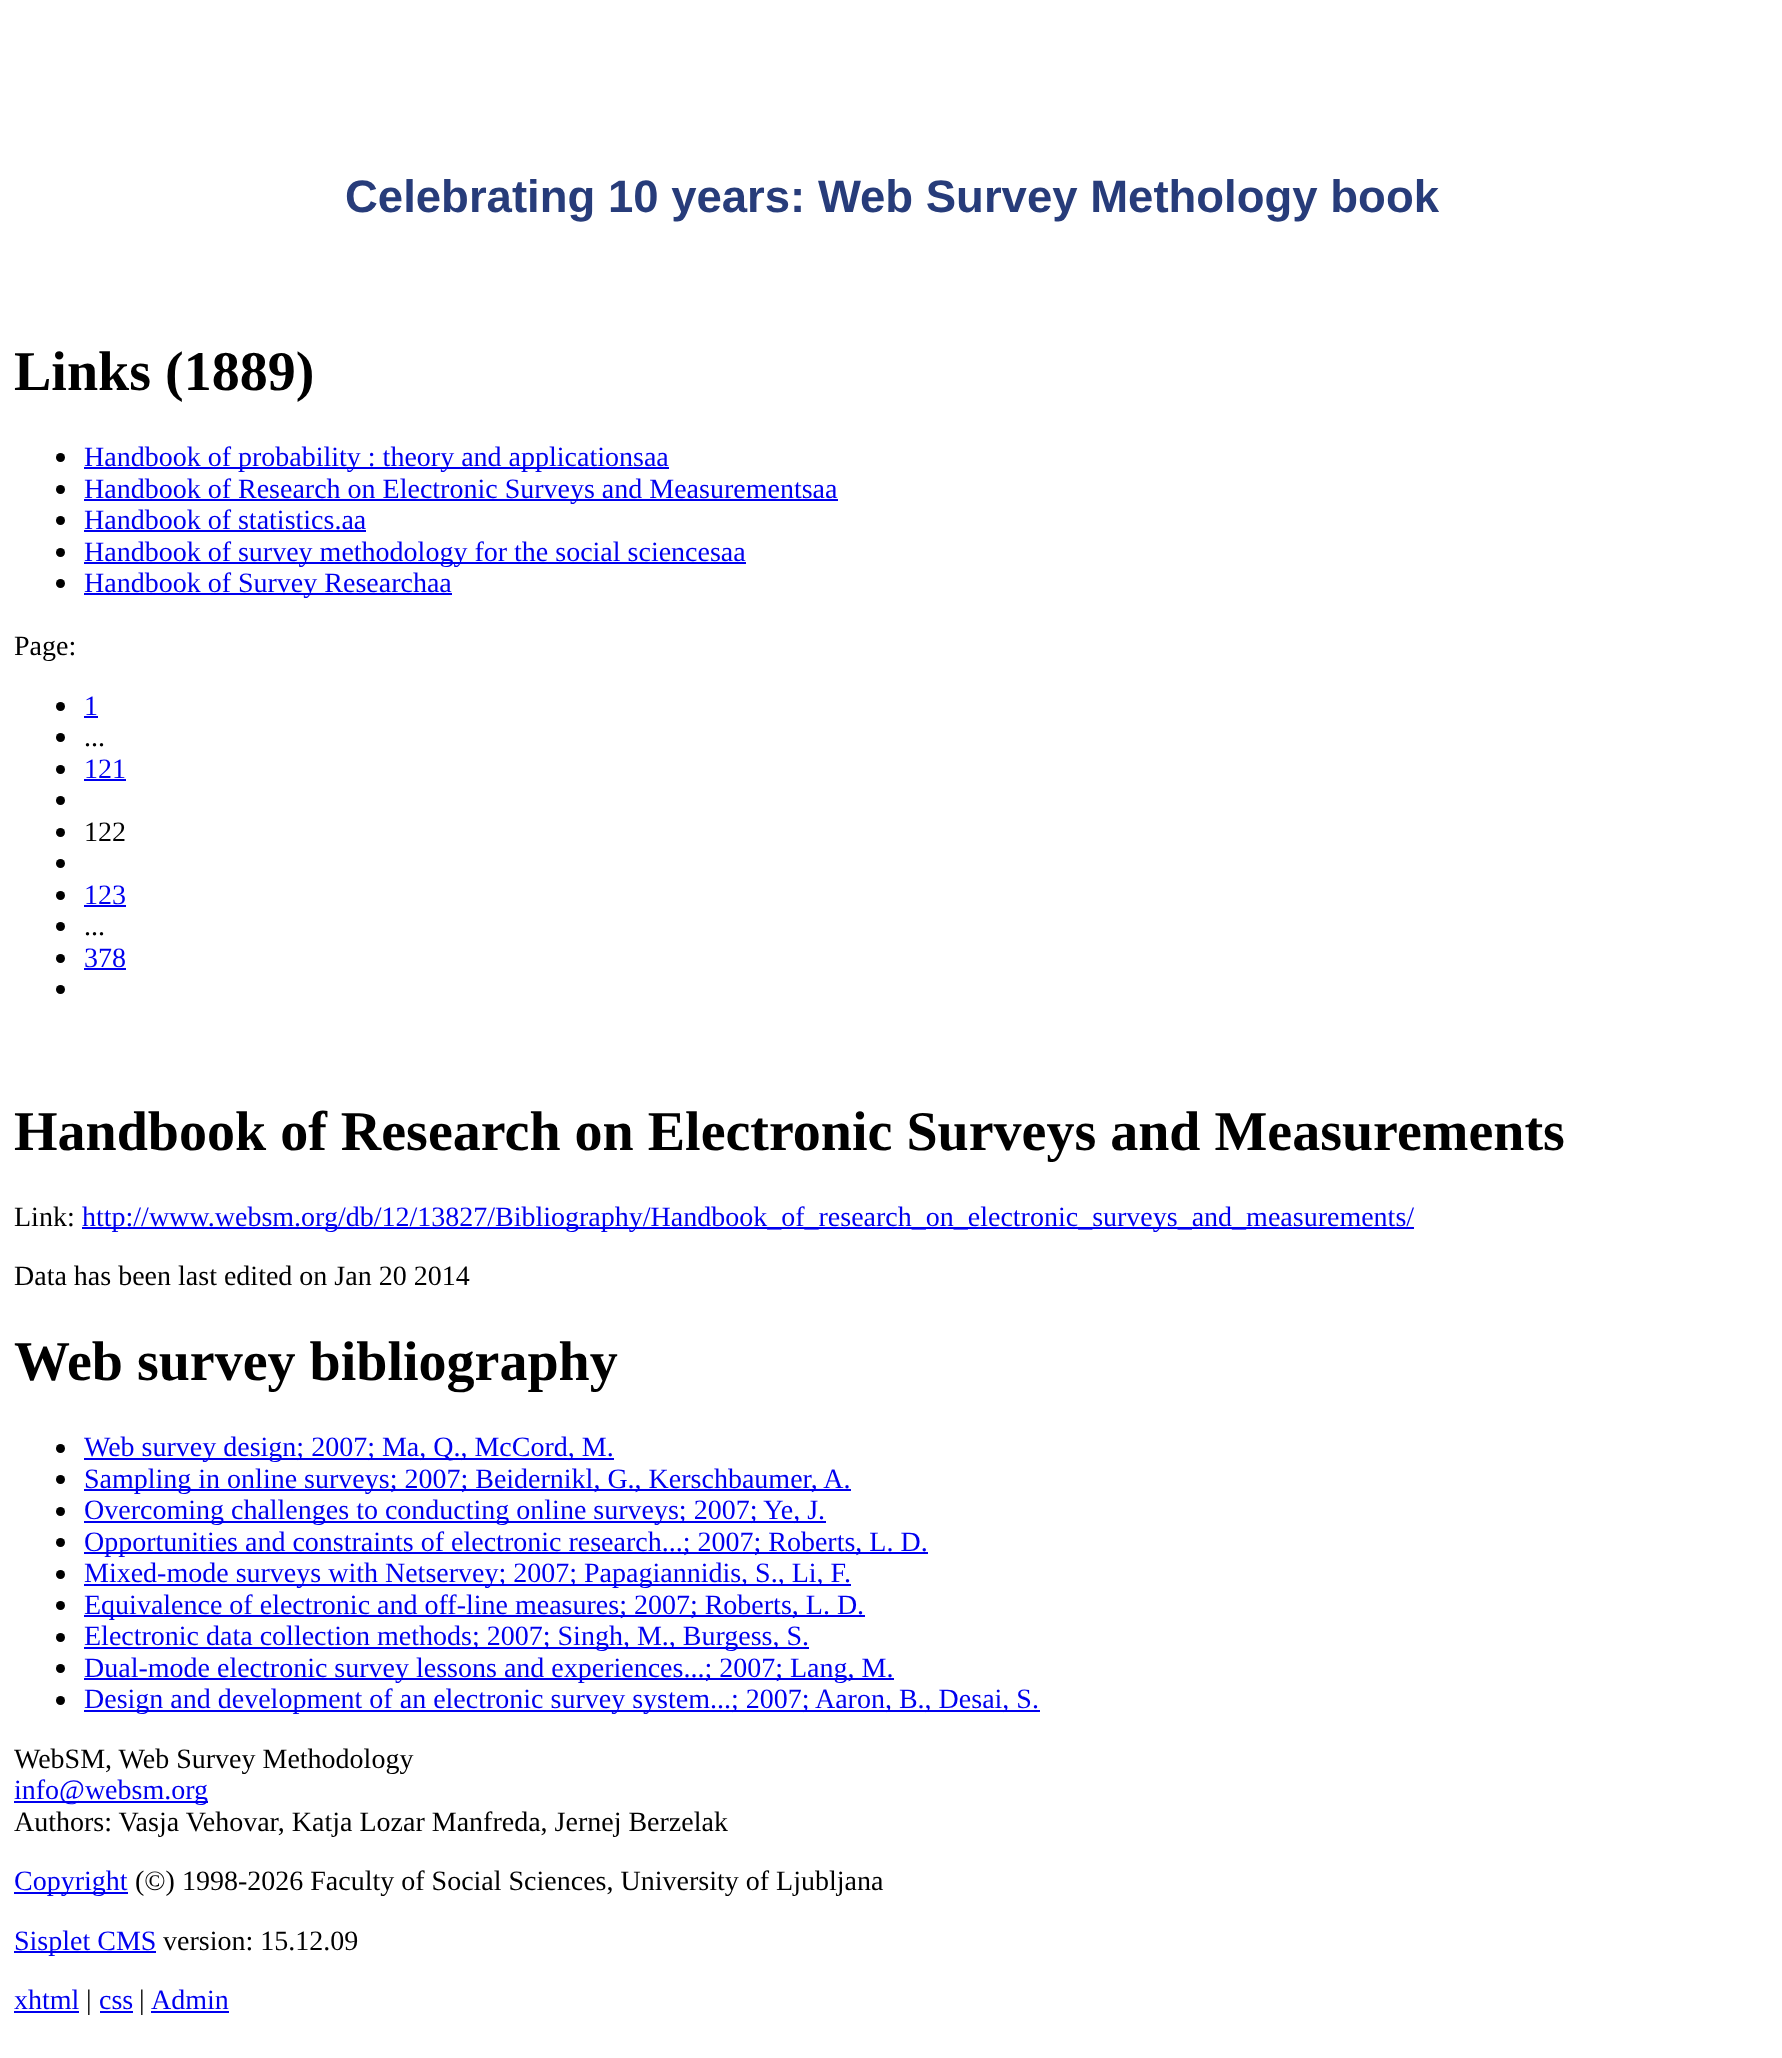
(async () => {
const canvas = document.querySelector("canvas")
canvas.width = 1782
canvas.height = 2058
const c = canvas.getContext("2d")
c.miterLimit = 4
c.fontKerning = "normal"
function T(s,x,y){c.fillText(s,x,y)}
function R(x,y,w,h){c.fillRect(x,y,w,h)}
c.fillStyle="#fff"
R(0,0,1782,2058)
c.font="bold 45.5px Liberation Sans"
c.fillStyle="#273c7a"
T("Celebrating 10 years: Web Survey Methology book",345,212)
c.font="bold 56px Liberation Serif"
c.fillStyle="#000"
T("Links (1889)",14,390)
c.beginPath()
c.arc(60.5,457.5,4.5,0,7)
c.fill()
c.fillStyle="#00e"
R(84,467,585,2)
c.font="28px Liberation Serif"
T("Handbook of probability : theory and applicationsaa",84,466)
c.fillStyle="#000"
c.beginPath()
c.arc(60.5,489.5,4.5,0,7)
c.fill()
c.fillStyle="#00e"
R(84,499,754,2)
T("Handbook of Research on Electronic Surveys and Measurementsaa",84,498)
c.fillStyle="#000"
c.beginPath()
c.arc(60.5,520.5,4.5,0,7)
c.fill()
c.fillStyle="#00e"
T("Handbook of statistics.aa",84,529)
R(84,530,282,2)
c.fillStyle="#000"
c.beginPath()
c.arc(60.5,552.5,4.5,0,7)
c.fill()
c.fillStyle="#00e"
R(84,562,662,2)
T("Handbook of survey methodology for the social sciencesaa",84,561)
c.fillStyle="#000"
c.beginPath()
c.arc(60.5,583.5,4.5,0,7)
c.fill()
c.fillStyle="#00e"
R(84,593,368,2)
T("Handbook of Survey Researchaa",84,592)
c.fillStyle="#000"
T("Page:",14,655)
c.beginPath()
c.arc(60.5,706.5,4.5,0,7)
c.fill()
c.fillStyle="#00e"
T("1",84,715)
R(84,716,14,2)
c.fillStyle="#000"
c.beginPath()
c.arc(60.5,737.5,4.5,0,7)
c.fill()
T("...",84,746)
c.beginPath()
c.arc(60.5,769.5,4.5,0,7)
c.fill()
c.fillStyle="#00e"
T("121",84,778)
R(84,779,42,2)
c.fillStyle="#000"
c.beginPath()
c.arc(60.5,800.5,4.5,0,7)
c.fill()
c.beginPath()
c.arc(60.5,832.5,4.5,0,7)
c.fill()
T("122",84,841)
c.beginPath()
c.arc(60.5,863.5,4.5,0,7)
c.fill()
c.beginPath()
c.arc(60.5,895.5,4.5,0,7)
c.fill()
c.fillStyle="#00e"
T("123",84,904)
R(84,905,42,2)
c.fillStyle="#000"
c.beginPath()
c.arc(60.5,926.5,4.5,0,7)
c.fill()
T("...",84,935)
c.beginPath()
c.arc(60.5,958.5,4.5,0,7)
c.fill()
c.fillStyle="#00e"
T("378",84,967)
R(84,968,42,2)
c.fillStyle="#000"
c.beginPath()
c.arc(60.5,989.5,4.5,0,7)
c.fill()
c.font="bold 56px Liberation Serif"
T("Handbook of Research on Electronic Surveys and Measurements",14,1150)
c.font="28px Liberation Serif"
T("Link:",14,1226)
c.fillStyle="#00e"
R(82,1227,1332,2)
T("http://www.websm.org/db/12/13827/Bibliography/Handbook_of_research_on_electronic_surveys_and_measurements/",82,1226)
c.fillStyle="#000"
T("Data has been last edited on Jan 20 2014",14,1285)
c.font="bold 56px Liberation Serif"
T("Web survey bibliography",14,1380)
c.beginPath()
c.arc(60.5,1448.5,4.5,0,7)
c.fill()
c.fillStyle="#00e"
R(84,1458,530,2)
c.font="28px Liberation Serif"
T("Web survey design; 2007; Ma, Q., McCord, M.",84,1456)
c.fillStyle="#000"
c.beginPath()
c.arc(60.5,1479.5,4.5,0,7)
c.fill()
c.fillStyle="#00e"
R(84,1489,767,2)
T("Sampling in online surveys; 2007; Beidernikl, G., Kerschbaumer, A.",84,1488)
c.fillStyle="#000"
c.beginPath()
c.arc(60.5,1511.5,4.5,0,7)
c.fill()
c.fillStyle="#00e"
R(84,1521,742,2)
T("Overcoming challenges to conducting online surveys; 2007; Ye, J.",84,1519)
c.fillStyle="#000"
c.beginPath()
c.arc(60.5,1542.5,4.5,0,7)
c.fill()
c.fillStyle="#00e"
R(84,1552,844,2)
T("Opportunities and constraints of electronic research...; 2007; Roberts, L. D.",84,1551)
c.fillStyle="#000"
c.beginPath()
c.arc(60.5,1574.5,4.5,0,7)
c.fill()
c.fillStyle="#00e"
R(84,1584,767,2)
T("Mixed-mode surveys with Netservey; 2007; Papagiannidis, S., Li, F.",84,1582)
c.fillStyle="#000"
c.beginPath()
c.arc(60.5,1605.5,4.5,0,7)
c.fill()
c.fillStyle="#00e"
R(84,1615,781,2)
T("Equivalence of electronic and off-line measures; 2007; Roberts, L. D.",84,1614)
c.fillStyle="#000"
c.beginPath()
c.arc(60.5,1637.5,4.5,0,7)
c.fill()
c.fillStyle="#00e"
R(84,1647,725,2)
T("Electronic data collection methods; 2007; Singh, M., Burgess, S.",84,1645)
c.fillStyle="#000"
c.beginPath()
c.arc(60.5,1668.5,4.5,0,7)
c.fill()
c.fillStyle="#00e"
R(84,1678,810,2)
T("Dual-mode electronic survey lessons and experiences...; 2007; Lang, M.",84,1677)
c.fillStyle="#000"
c.beginPath()
c.arc(60.5,1700.5,4.5,0,7)
c.fill()
c.fillStyle="#00e"
R(84,1710,956,2)
T("Design and development of an electronic survey system...; 2007; Aaron, B., Desai, S.",84,1708)
c.fillStyle="#000"
T("WebSM, Web Survey Methodology",14,1768)
c.fillStyle="#00e"
R(14,1801,194,2)
T("info@websm.org",14,1799)
c.fillStyle="#000"
T("Authors: Vasja Vehovar, Katja Lozar Manfreda, Jernej Berzelak",14,1831)
c.fillStyle="#00e"
R(14,1892,114,2)
T("Copyright",14,1890)
c.fillStyle="#000"
T("(©) 1998-2026 Faculty of Social Sciences, University of Ljubljana",135,1890)
c.fillStyle="#00e"
R(14,1951,142,2)
T("Sisplet CMS",14,1950)
c.fillStyle="#000"
T("version: 15.12.09",163,1950)
c.fillStyle="#00e"
T("xhtml",14,2009)
R(14,2011,65,2)
c.fillStyle="#000"
T("|",86,2009)
c.fillStyle="#00e"
T("css",99,2009)
R(100,2011,33,2)
c.fillStyle="#000"
T("|",139,2009)
c.fillStyle="#00e"
T("Admin",151,2009)
R(151,2011,78,2)
})()
